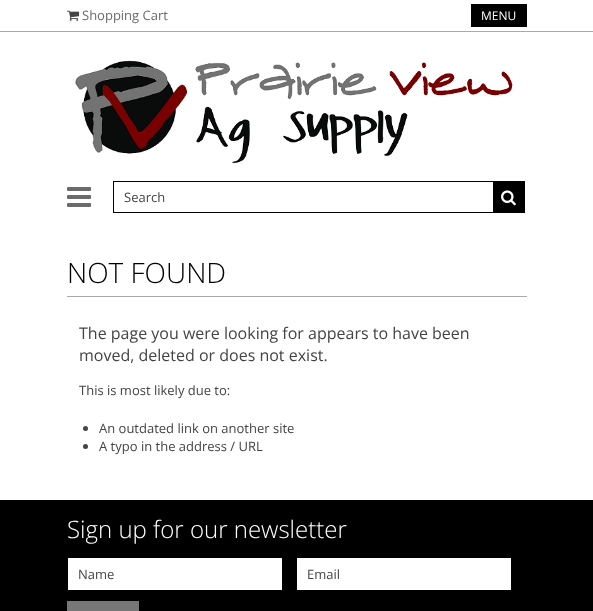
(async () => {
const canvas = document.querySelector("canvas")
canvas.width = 593
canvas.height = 611
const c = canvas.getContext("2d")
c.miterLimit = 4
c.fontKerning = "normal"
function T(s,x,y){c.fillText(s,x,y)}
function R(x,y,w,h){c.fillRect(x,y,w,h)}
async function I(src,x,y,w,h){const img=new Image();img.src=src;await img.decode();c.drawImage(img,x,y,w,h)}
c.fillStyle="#fff"
R(0,0,593,611)
c.fillStyle="#aaa"
R(0,31,593,1)
await I("1.png",67,10,13,11)
c.font="13px Open Sans"
c.fillStyle="#6b6b6b"
T("Shopping Cart",82,20)
c.fillStyle="#000"
R(471,4,56,23)
c.font="12px Open Sans"
c.fillStyle="#fff"
T("MENU",481,20)
await I("2.png",75,60,438,104)
await I("3.png",67,187,24,20)
c.fillStyle="#000"
R(113,181,380,1)
R(113,212,380,1)
R(113,181,1,32)
c.font="13px Open Sans"
c.fillStyle="#444"
T("Search",124,202)
c.fillStyle="#000"
R(493,181,32,32)
await I("4.png",501,190,15,16)
c.fillStyle="#aaa"
R(67,296,460,1)
c.font="300 28px Open Sans"
c.fillStyle="#000"
T("NOT FOUND",67,283)
c.font="16px Open Sans"
c.fillStyle="#444"
T("The page you were looking for appears to have been",79,339)
T("moved, deleted or does not exist.",79,361)
c.font="13px Open Sans"
T("This is most likely due to:",79,395)
c.beginPath()
c.arc(85.5,428.5,2.5,0,7)
c.fill()
T("An outdated link on another site",99,433)
c.beginPath()
c.arc(85.5,446.5,2.5,0,7)
c.fill()
T("A typo in the address / URL",99,451)
c.fillStyle="#000"
R(0,500,593,111)
c.font="300 24px Open Sans"
c.fillStyle="#fff"
T("Sign up for our newsletter",67,538)
R(68,558,214,32)
c.font="13px Open Sans"
c.fillStyle="#444"
T("Name",78,579)
c.fillStyle="#fff"
R(297,558,214,32)
c.fillStyle="#444"
T("Email",307,579)
c.fillStyle="#777"
R(67,601,72,10)
})()
